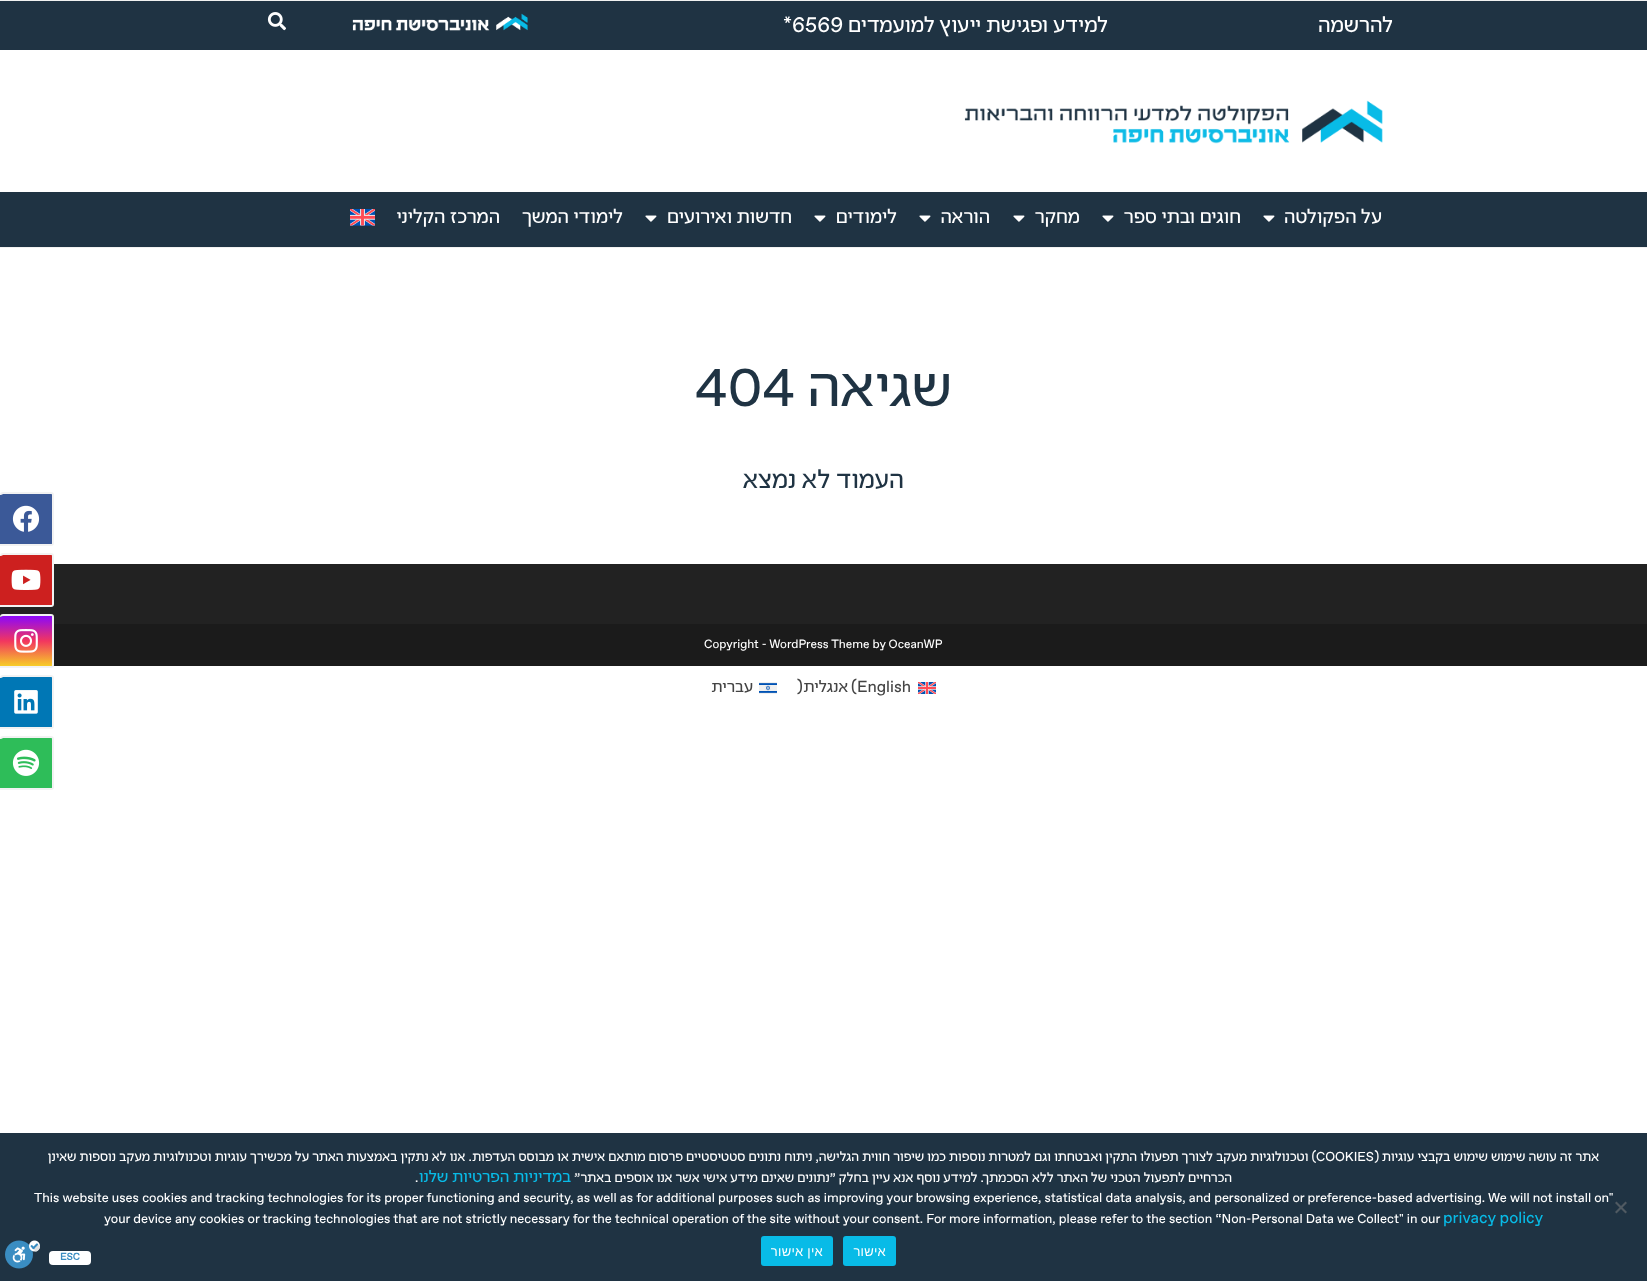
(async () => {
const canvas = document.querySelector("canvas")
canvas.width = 1647
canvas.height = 1281
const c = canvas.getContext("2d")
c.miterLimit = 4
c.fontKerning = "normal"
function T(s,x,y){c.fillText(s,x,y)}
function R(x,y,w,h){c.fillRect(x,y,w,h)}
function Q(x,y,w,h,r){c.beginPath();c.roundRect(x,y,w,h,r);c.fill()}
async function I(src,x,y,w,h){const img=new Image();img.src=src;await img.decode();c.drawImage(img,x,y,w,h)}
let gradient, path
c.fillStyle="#fff"
R(0,0,1647,1281)
c.fillStyle="#3b5998"
path = new Path2D("M3 494h48c1 0 1 0 1 1v48c0 1 0 1-1 1h-51v-49z")
c.fill(path)
c.fillStyle="#f2f2f2"
path = new Path2D("M3 492h48c2 0 3 1 3 3v48c0 2-1 3-3 3h-51v-51c0-2 1-3 3-3zm0 2h48c1 0 1 0 1 1v48c0 1 0 1-1 1h-51v-49z")
c.fill(path,"evenodd")
await I("1.png",12,505,28,27)
c.fillStyle="#222"
R(0,564,1647,60)
c.fillStyle="#cd201f"
path = new Path2D("M3 555h48c1 0 1 0 1 1v48c0 1 0 1-1 1h-51v-49z")
c.fill(path)
c.fillStyle="#f2f2f2"
path = new Path2D("M3 553h48c2 0 3 1 3 3v48c0 2-1 3-3 3h-51v-51c0-2 1-3 3-3zm0 2h48c1 0 1 0 1 1v48c0 1 0 1-1 1h-51v-49z")
c.fill(path,"evenodd")
await I("2.png",11,569,30,21)
c.fillStyle="#1b1b1b"
R(51,624,1596,42)
gradient = c.createLinearGradient(26,616,26,666)
gradient.addColorStop(0,"#8b08fa")
gradient.addColorStop(.5,"#f2365f")
gradient.addColorStop(1,"#f7cd27")
c.fillStyle = gradient
path = new Path2D("M3 616h48c1 0 1 0 1 1v48c0 1 0 1-1 1h-51v-49z")
c.fill(path)
c.fillStyle="#f2f2f2"
path = new Path2D("M3 614h48c2 0 3 1 3 3v48c0 2-1 3-3 3h-51v-51c0-2 1-3 3-3zm0 2h48c1 0 1 0 1 1v48c0 1 0 1-1 1h-51v-49z")
c.fill(path,"evenodd")
await I("3.png",14,629,24,24)
c.fillStyle="#0077b5"
path = new Path2D("M3 677h48c1 0 1 0 1 1v48c0 1 0 1-1 1h-51v-49z")
c.fill(path)
c.fillStyle="#f2f2f2"
path = new Path2D("M3 675h48c2 0 3 1 3 3v48c0 2-1 3-3 3h-51v-51c0-2 1-3 3-3zm0 2h48c1 0 1 0 1 1v48c0 1 0 1-1 1h-51v-49z")
c.fill(path,"evenodd")
await I("4.png",14,690,24,24)
c.fillStyle="#2ebd59"
path = new Path2D("M3 738h48c1 0 1 0 1 1v48c0 1 0 1-1 1h-51v-49z")
c.fill(path)
c.fillStyle="#f2f2f2"
path = new Path2D("M3 736h48c2 0 3 1 3 3v48c0 2-1 3-3 3h-51v-51c0-2 1-3 3-3zm0 2h48c1 0 1 0 1 1v48c0 1 0 1-1 1h-51v-49z")
c.fill(path,"evenodd")
await I("5.png",12,749,28,27)
c.fillStyle="#f1f1f1"
R(0,0,1647,1)
R(0,247,1647,1)
c.fillStyle="#1f3343"
R(0,1,1647,49)
await I("6.png",267,12,19,19)
await I("7.png",352,13,176,18)
c.font="21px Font"
c.fillStyle="#fff"
T("*6569",783,32)
c.direction="rtl"
T("למידע ופגישת ייעוץ למועמדים",1108,32)
T("להרשמה",1393,32)
await I("8.png",964,100,419,44)
c.fillStyle="#1f3343"
R(0,192,1647,55)
await I("9.png",350,209,25,17)
c.font="19px Font"
c.fillStyle="#fff"
T("המרכז הקליני",500,223)
T("לימודי המשך",623,223)
await I("10.png",645,215,12,7)
T("חדשות ואירועים",792,223)
await I("10.png",814,215,12,7)
T("לימודים",897,223)
await I("10.png",919,215,12,7)
T("הוראה",990,223)
await I("10.png",1013,215,12,7)
T("מחקר",1080,223)
await I("10.png",1102,215,12,7)
T("חוגים ובתי ספר",1241,223)
await I("10.png",1263,215,12,7)
T("על הפקולטה",1382,223)
c.direction="ltr"
c.font="53px Font"
c.fillStyle="#1f3343"
T("404",695,406)
c.direction="rtl"
c.font="53px 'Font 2'"
T("שגיאה",952,406)
c.font="25px Font"
T("העמוד לא נמצא",904,488)
c.direction="ltr"
c.font="12px Font"
c.fillStyle="#fff"
T("Copyright - WordPress Theme by OceanWP",704,648)
c.direction="rtl"
c.font="16px Font"
c.fillStyle="#444"
T("עברית",753,692)
await I("11.png",759,682,18,12)
c.direction="ltr"
T(")",797,692)
c.direction="rtl"
T("אנגלית",848,692)
c.direction="ltr"
T("(",851,692)
T("English",857,692)
await I("12.png",918,682,18,12)
c.fillStyle="#1f3343"
R(0,1133,1647,148)
c.direction="rtl"
c.font="13px Font"
c.fillStyle="#fff"
T(") וטכנולוגיות מעקב לצורך תפעולו התקין ואבטחתו וגם למטרות נוספות כמו שיפור חווית הגלישה, ניתוח נתונים סטטיסטיים פרסום מותאם אישית או מבוסס העדפות. אנו לא נתקין באמצעות האתר על מכשירך עוגיות וטכנולוגיות מעקב נוספות שאינן",1316,1161)
c.direction="ltr"
T("COOKIES",1316,1161)
c.direction="rtl"
T("אתר זה עושה שימוש שימוש בקבצי עוגיות (",1599,1161)
c.direction="ltr"
T(".",415,1182)
c.direction="rtl"
c.font="16px Font"
c.fillStyle="#08bbe7"
T("במדיניות הפרטיות שלנו",571,1182)
c.font="13px Font"
c.fillStyle="#fff"
T("הכרחיים לתפעול הטכני של האתר ללא הסכמתך. למידע נוסף אנא עיין בחלק \"נתונים שאינם מידע אישי אשר אנו אוספים באתר\"",1232,1182)
c.direction="ltr"
T("This website uses cookies and tracking technologies for its proper functioning and security, as well as for additional purposes such as improving your browsing experience, statistical data analysis, and personalized or preference-based advertising. We will not install on\"",34,1202)
T("your device any cookies or tracking technologies that are not strictly necessary for the technical operation of the site without your consent. For more information, please refer to the section “Non-Personal Data we Collect\" in our",104,1223)
c.font="16px Font"
c.fillStyle="#08bbe7"
T("privacy policy",1443,1223)
c.fillStyle="#505a62"
path = new Path2D("M1625.5 1201.5l1.5 1.5l-10.5 10.5l-1.5-1.5z")
c.fill(path)
path = new Path2D("M1615 1203l1.5-1.5l10.5 10.5l-1.5 1.5z")
c.fill(path)
c.fillStyle="#08bbe7"
Q(761,1236,72,30,3)
c.letterSpacing="0.25px"
c.direction="rtl"
c.font="13px Liberation Sans"
c.fillStyle="#fff"
T("אין אישור",823,1256)
c.fillStyle="#08bbe7"
Q(843,1236,53,30,3)
c.fillStyle="#fff"
T("אישור",886,1256)
await I("13.png",5,1240,35,29)
Q(49,1251,42,14,4)
c.letterSpacing="0px"
c.direction="ltr"
c.font="bold 10px Font"
c.fillStyle="#3a8dc2"
T("ESC",60,1260)
})()
